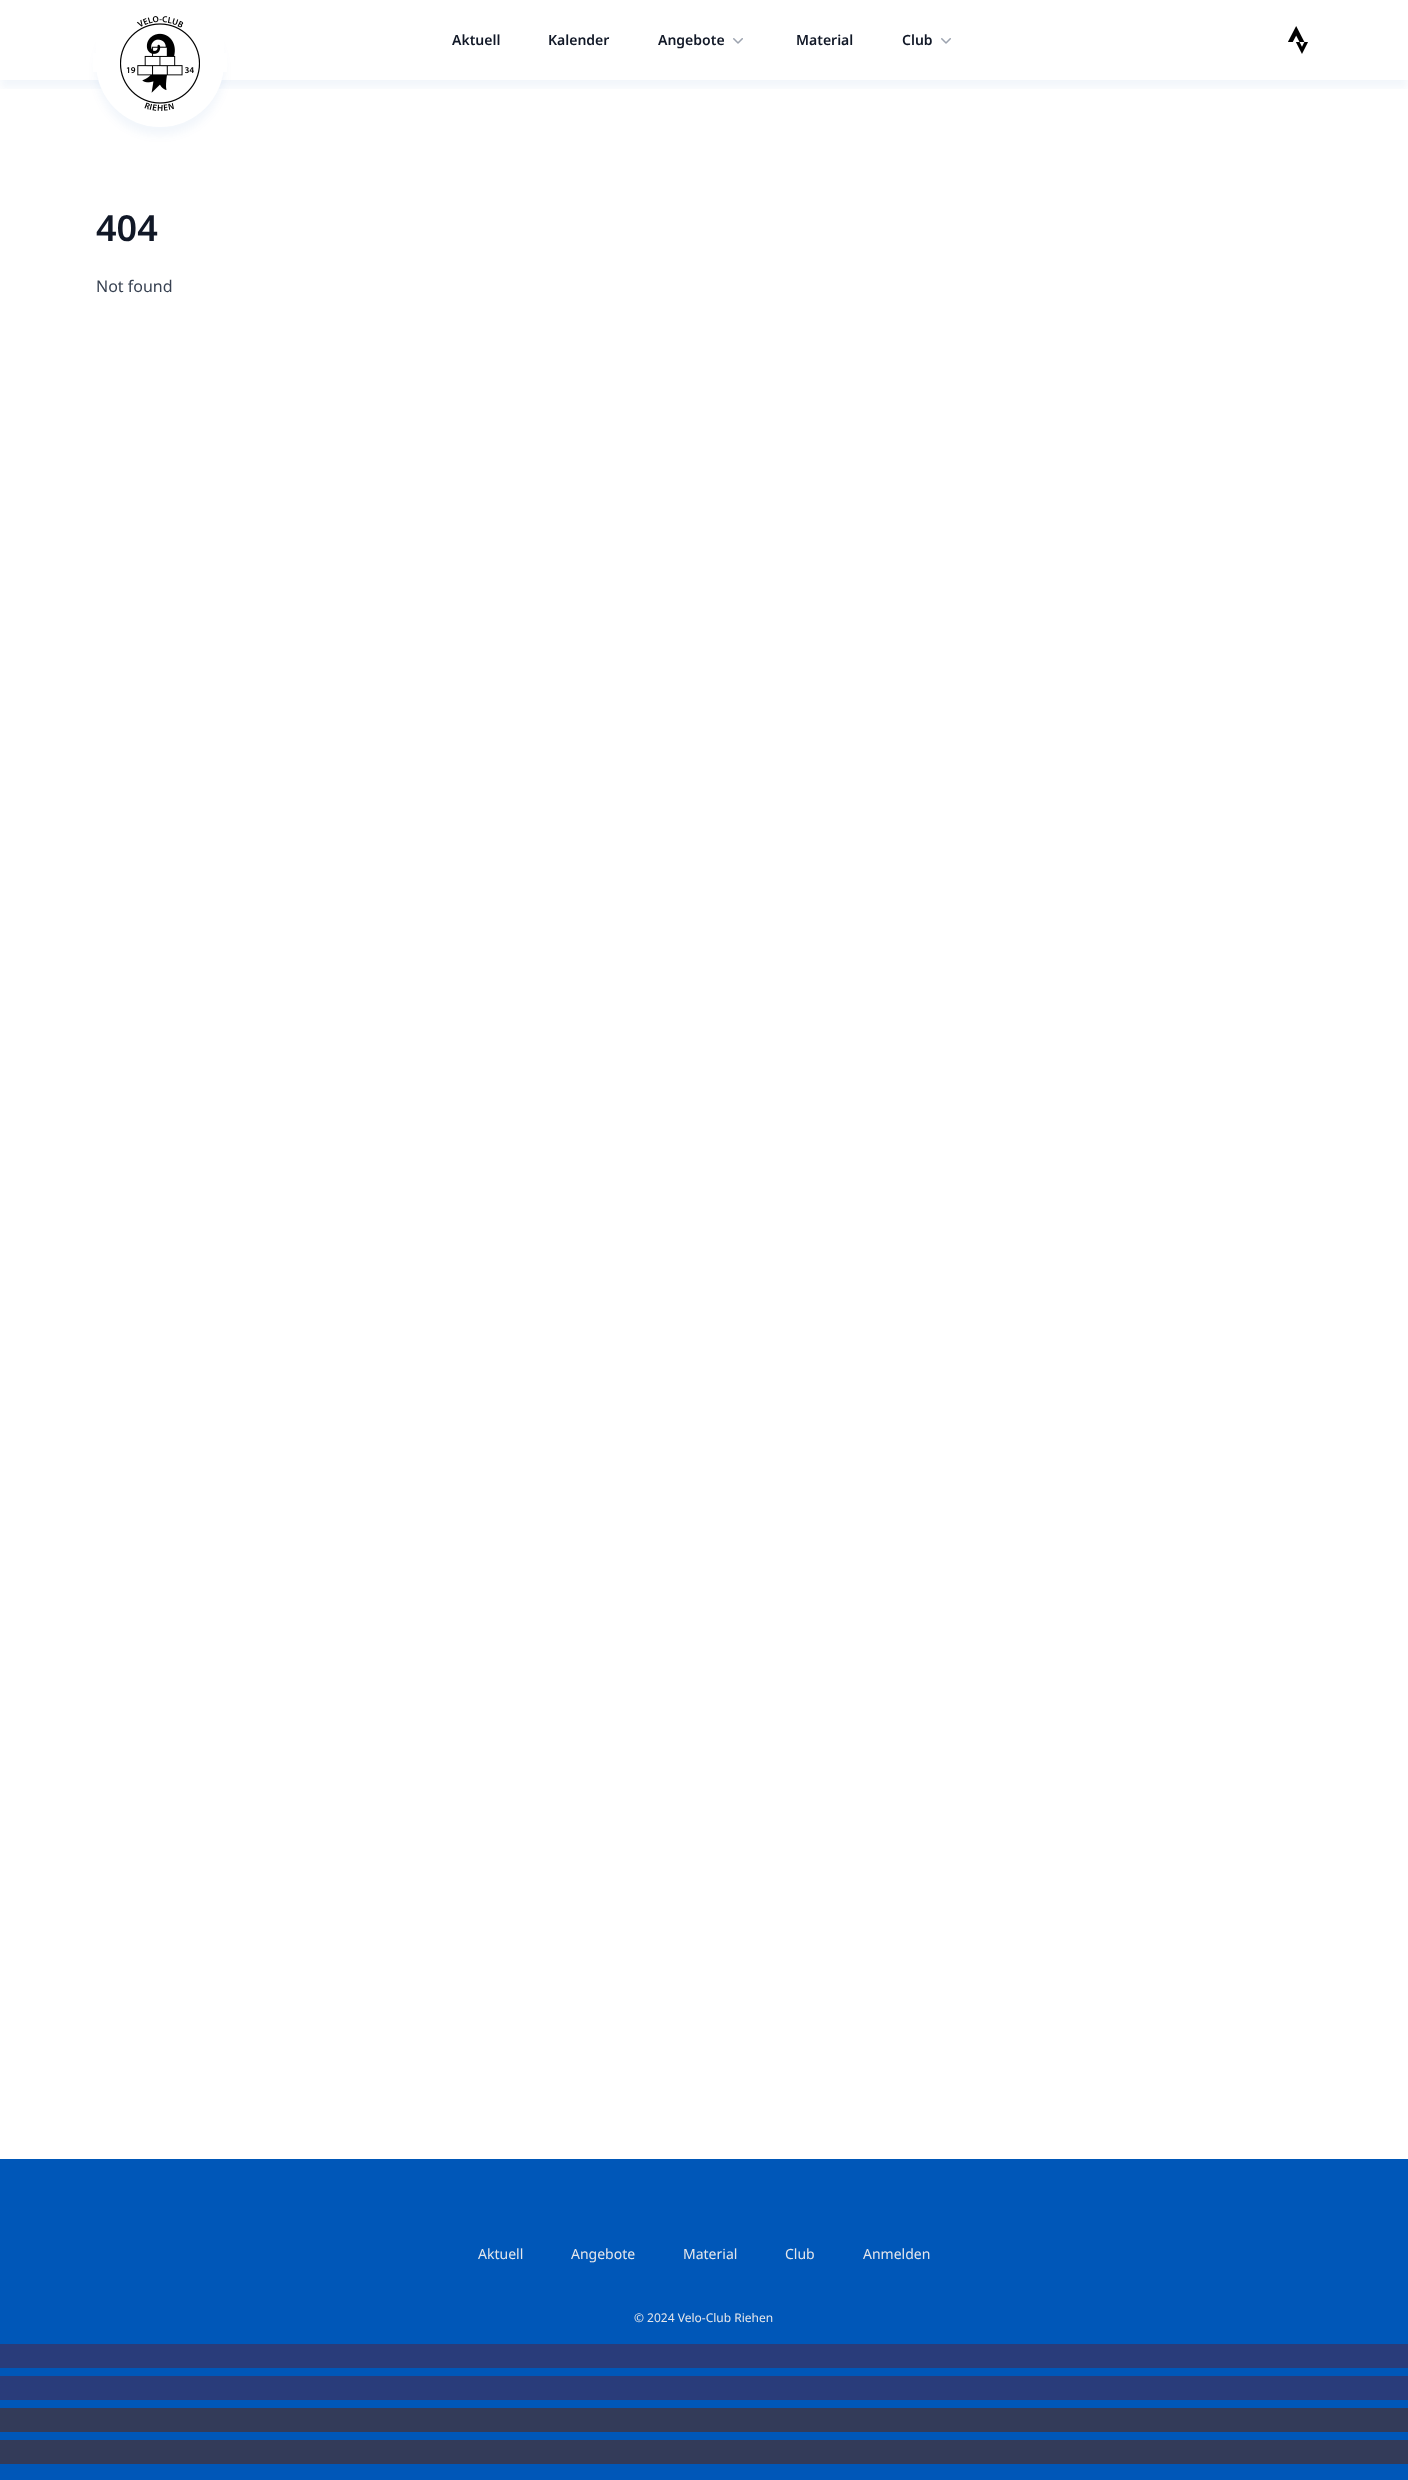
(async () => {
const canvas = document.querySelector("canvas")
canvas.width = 1408
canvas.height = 2480
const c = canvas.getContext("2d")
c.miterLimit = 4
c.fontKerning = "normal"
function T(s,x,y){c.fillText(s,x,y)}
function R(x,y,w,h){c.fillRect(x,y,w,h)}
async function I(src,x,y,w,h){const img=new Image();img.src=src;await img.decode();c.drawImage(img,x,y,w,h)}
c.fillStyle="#fff"
R(0,0,1408,2480)
c.save()
c.beginPath()
c.rect(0,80,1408,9)
c.clip()
c.fillStyle="#0057b80d"
c.filter="blur(4px)"
c.beginPath()
c.rect(0,8,1408,80)
c.fill()
c.filter="none"
c.restore()
c.fillStyle="#0057b80d"
c.filter="blur(4px)"
c.beginPath()
c.roundRect(96,8,128,127,64)
c.fill()
c.filter="none"
c.fillStyle="#fff"
c.beginPath()
c.roundRect(96,0,128,127,[0,0,64,64])
c.fill()
R(93,53,134,19)
await I("1.png",120,16,80,95)
c.font="600 14px Noto Sans"
c.fillStyle="#111827"
T("Aktuell",452,45)
T("Kalender",548,45)
T("Angebote",658,45)
await I("2.png",733,38,10,6)
T("Material",796,45)
T("Club",902,45)
await I("2.png",941,38,10,6)
await I("3.png",1288,26,20,28)
c.font="600 36px Noto Sans"
T("404",96,241)
c.font="16px Noto Sans"
c.fillStyle="#374151"
T("Not found",96,292)
c.fillStyle="#0057b8"
R(0,2159,1408,321)
c.font="14px Noto Sans"
c.fillStyle="#e5e7eb"
T("Aktuell",478,2259)
T("Angebote",571,2259)
T("Material",683,2259)
T("Club",785,2259)
T("Anmelden",863,2259)
c.font="12px Noto Sans"
T("© 2024 Velo-Club Riehen",634,2322)
c.fillStyle="#293c7a"
R(0,2344,1408,24)
R(0,2376,1408,24)
c.fillStyle="#333b59"
R(0,2408,1408,24)
R(0,2440,1408,24)
})()
